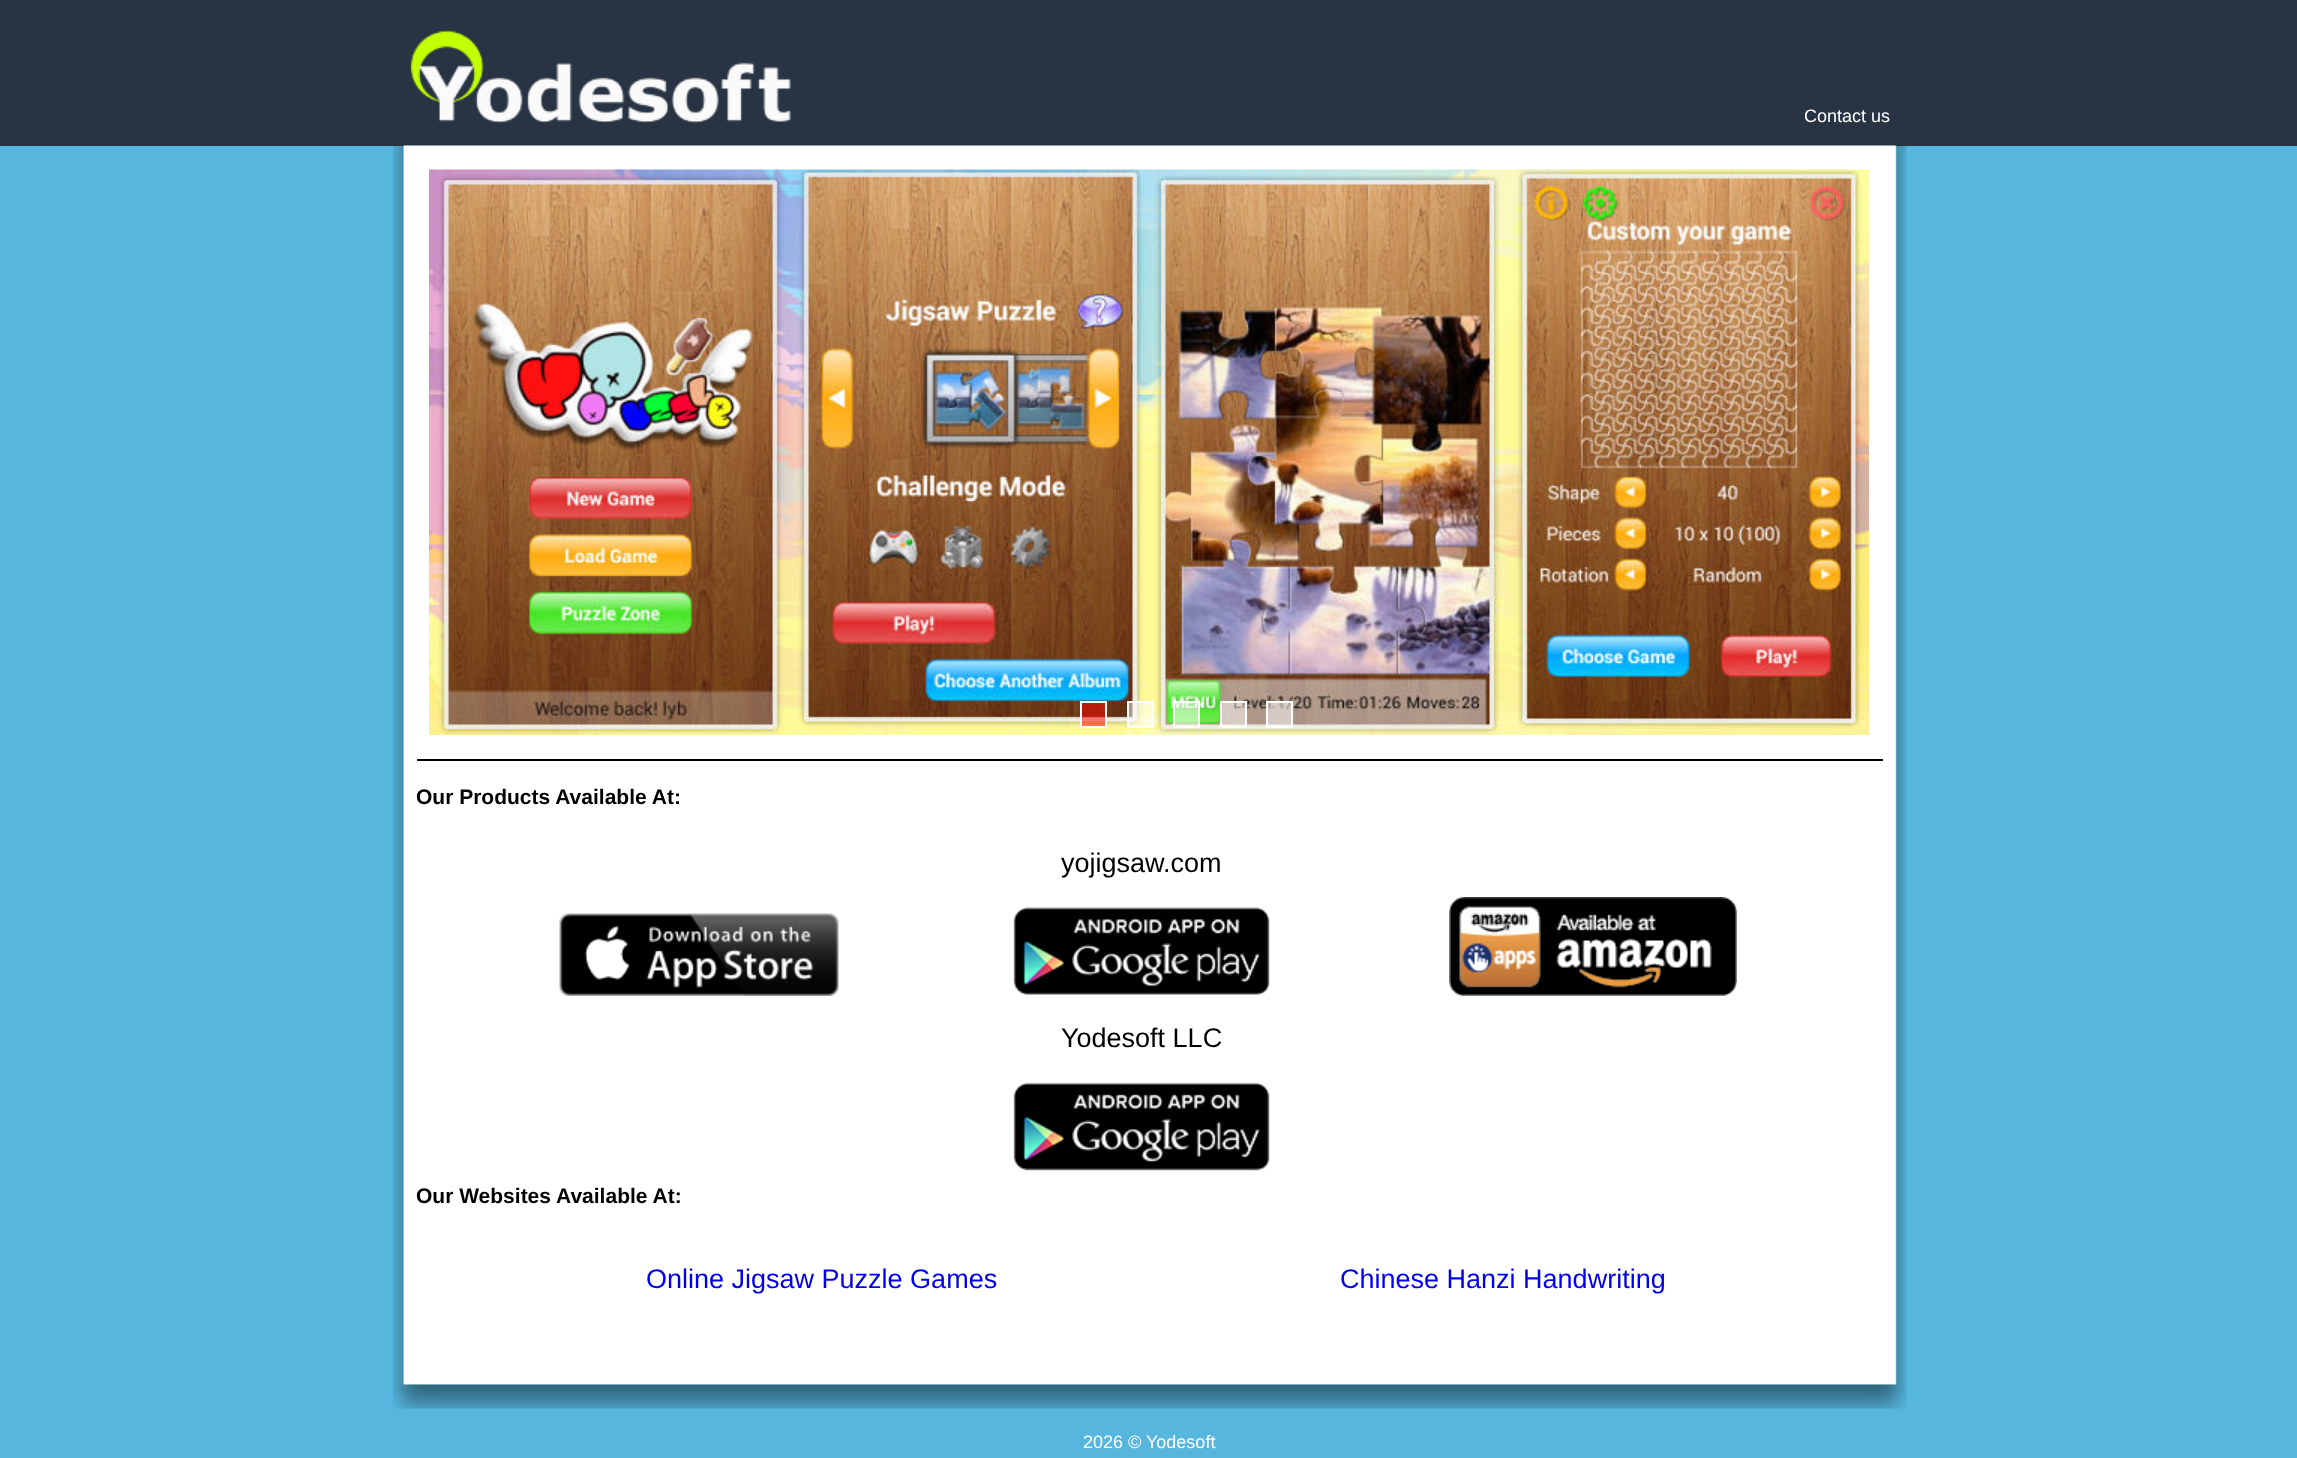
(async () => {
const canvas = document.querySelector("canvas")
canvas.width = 2297
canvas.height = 1458
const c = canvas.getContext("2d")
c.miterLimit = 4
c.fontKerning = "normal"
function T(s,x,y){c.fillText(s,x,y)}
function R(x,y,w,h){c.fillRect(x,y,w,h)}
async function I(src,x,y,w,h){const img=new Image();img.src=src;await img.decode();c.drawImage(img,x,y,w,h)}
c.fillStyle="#56b6de"
R(0,0,2297,1458)
c.fillStyle="#283443"
R(0,0,2297,146)
await I("1.png",410,30,381,94)
c.font="18px Liberation Sans"
c.fillStyle="#fff"
T("Contact us",1804,122)
await I("2.png",393,145,1514,1240)
await I("3.png",429,169,1440,566)
c.fillStyle="#ff000080"
c.beginPath()
c.rect(1081,702,25,25)
c.fill()
c.strokeStyle="#fff"
c.lineWidth=2
c.stroke()
c.fillStyle="#ffffff80"
c.beginPath()
c.rect(1128,702,25,25)
c.fill()
c.stroke()
c.beginPath()
c.rect(1174,702,25,25)
c.fill()
c.stroke()
c.beginPath()
c.rect(1221,702,25,25)
c.fill()
c.stroke()
c.beginPath()
c.rect(1267,702,25,25)
c.fill()
c.stroke()
c.fillStyle="#000"
R(417,759,1466,2)
c.font="bold 21px Liberation Sans"
T("Our Products Available At:",416,804)
c.font="27px Liberation Sans"
T("yojigsaw.com",1061,872)
await I("4.png",1013,907,257,88)
await I("5.png",559,913,280,83)
await I("6.png",1449,897,288,99)
T("Yodesoft LLC",1061,1047)
await I("7.png",1013,1082,257,89)
c.font="bold 21px Liberation Sans"
T("Our Websites Available At:",416,1203)
c.font="27px Liberation Sans"
c.fillStyle="#00e"
T("Online Jigsaw Puzzle Games",646,1288)
T("Chinese Hanzi Handwriting",1340,1288)
await I("8.png",393,1384,1514,25)
c.font="18px Liberation Sans"
c.fillStyle="#fff"
T("2026 © Yodesoft",1083,1448)
})()
